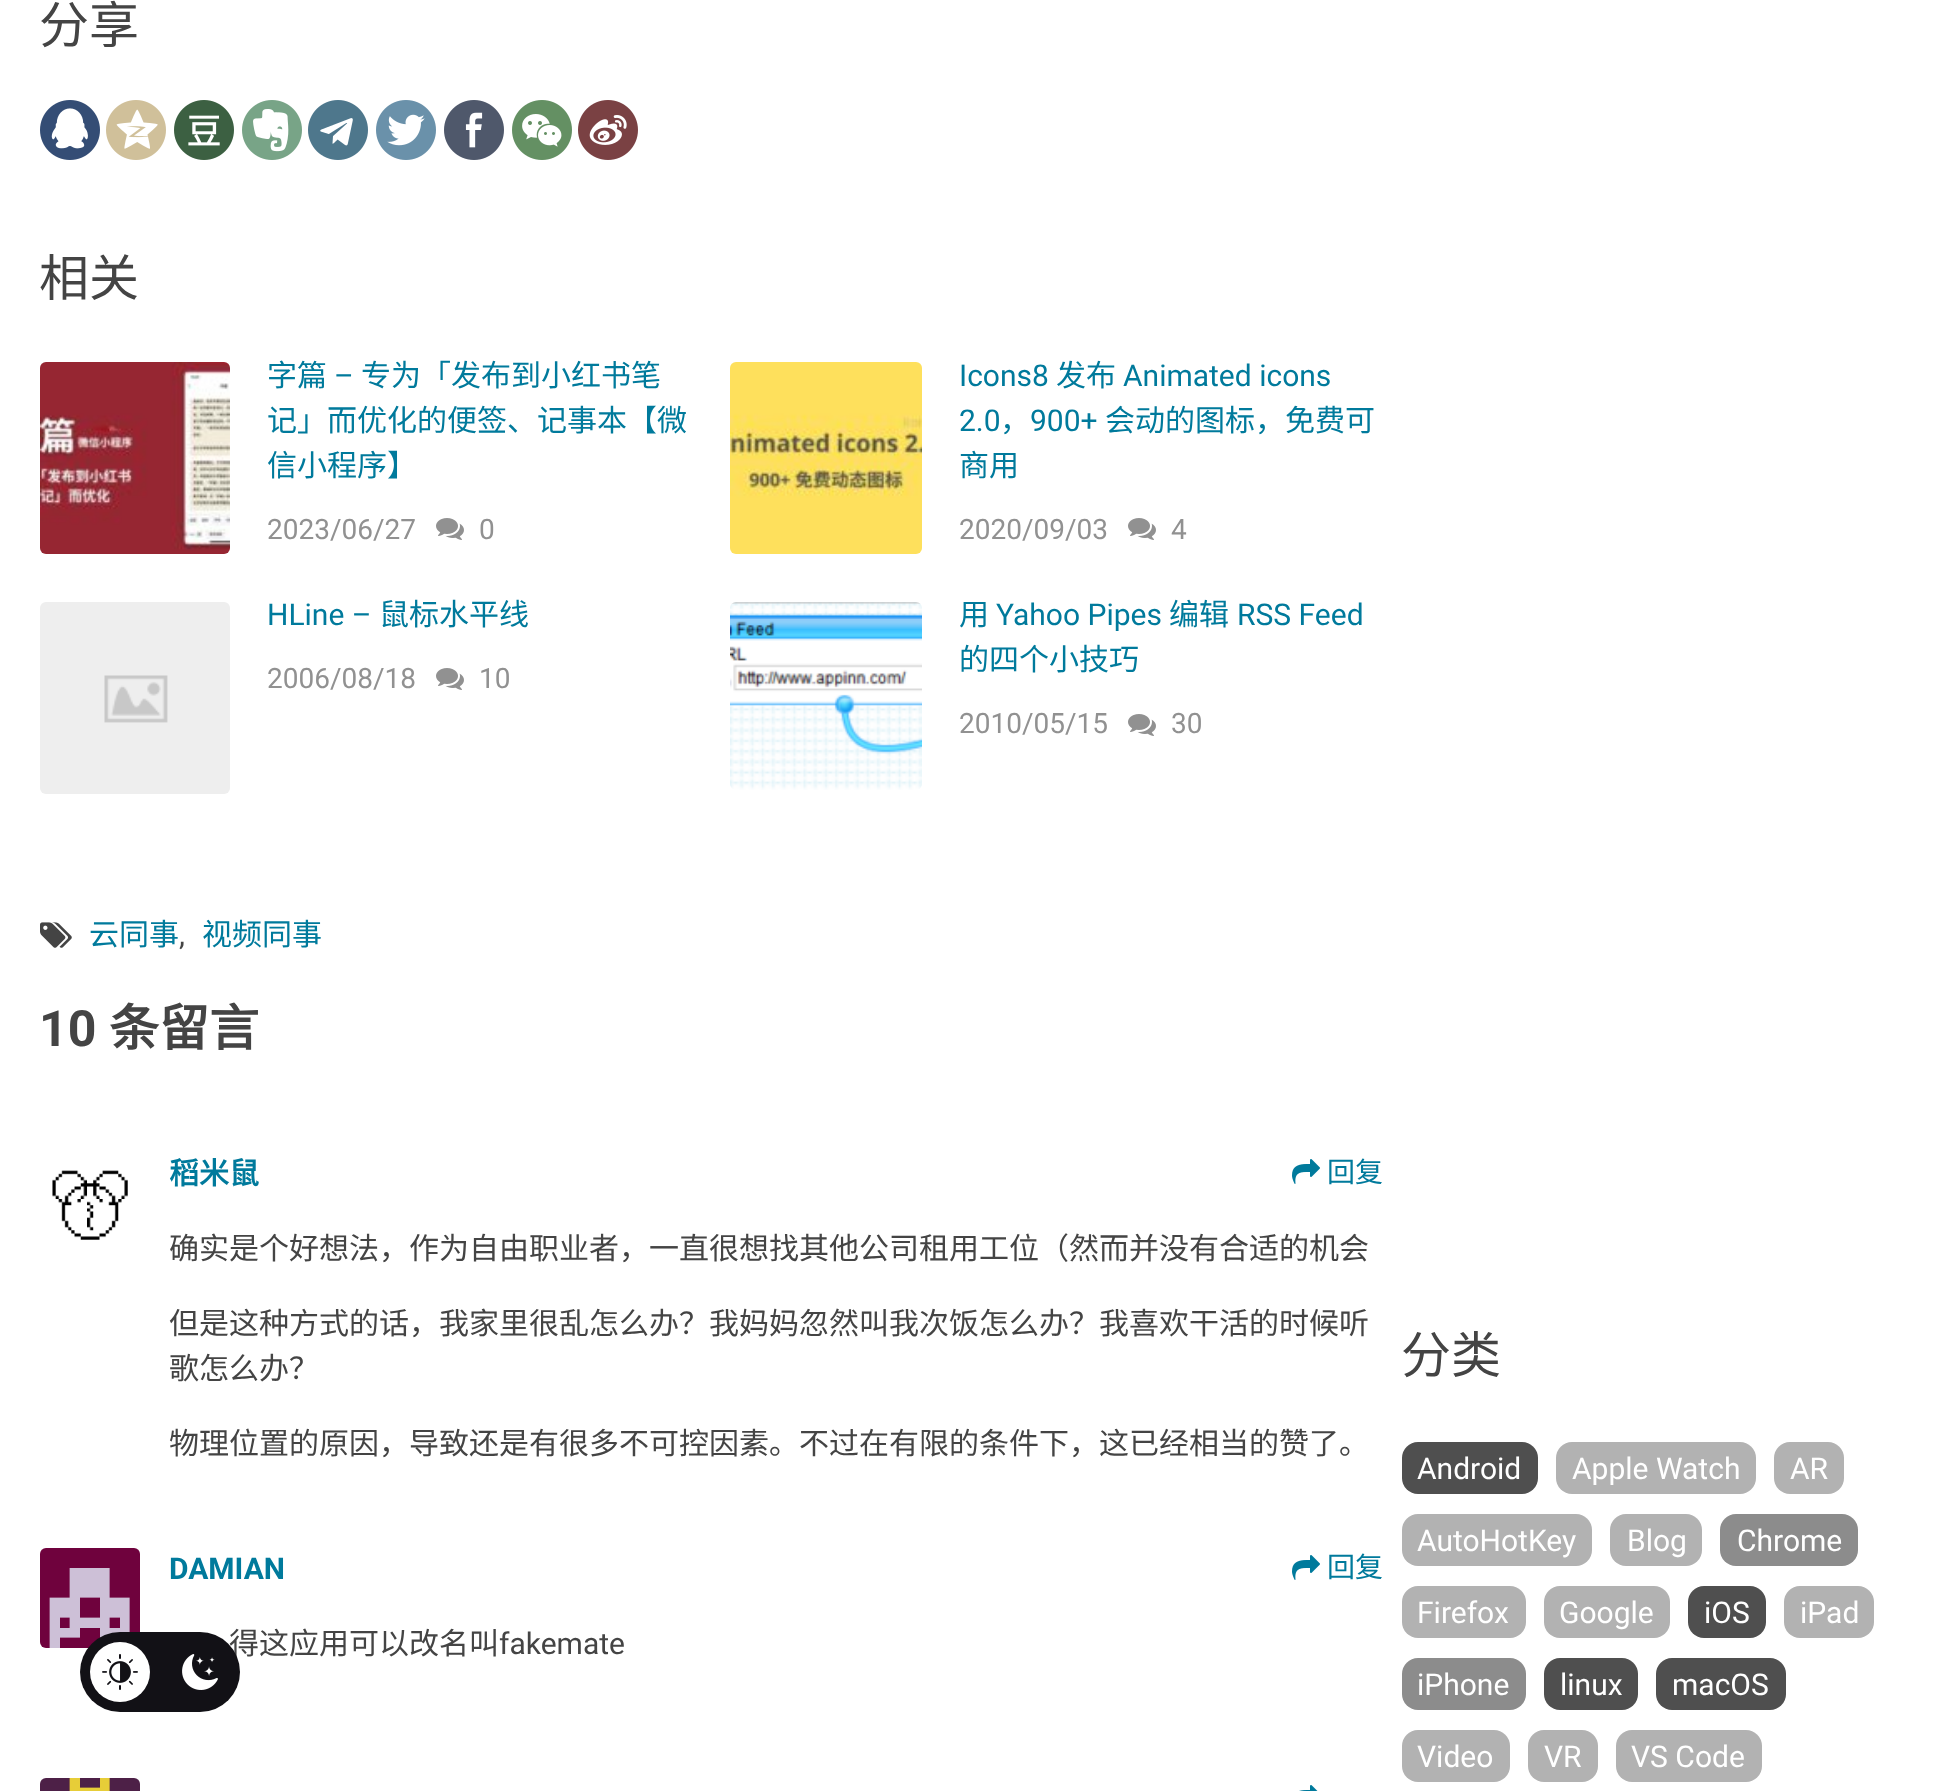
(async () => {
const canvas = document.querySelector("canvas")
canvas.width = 1951
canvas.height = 1791
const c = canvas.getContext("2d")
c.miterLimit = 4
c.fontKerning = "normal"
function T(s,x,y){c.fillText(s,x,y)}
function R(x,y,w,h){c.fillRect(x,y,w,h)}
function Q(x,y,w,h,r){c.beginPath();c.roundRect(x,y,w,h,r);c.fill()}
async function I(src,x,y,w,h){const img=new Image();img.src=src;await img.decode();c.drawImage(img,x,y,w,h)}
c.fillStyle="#fff"
R(0,0,1951,1791)
c.font="50px Noto Sans CJK SC"
c.fillStyle="#444"
T("分享",39,43)
await I("1.png",40,100,60,60)
await I("2.png",106,100,60,60)
await I("3.png",174,100,60,60)
await I("4.png",242,100,60,60)
await I("5.png",308,100,60,60)
await I("6.png",376,100,60,60)
await I("7.png",444,100,60,60)
await I("8.png",512,100,60,60)
await I("9.png",578,100,60,60)
T("相关",39,296)
await I("10.png",40,362,190,192)
c.font="30px Noto Sans CJK SC"
c.fillStyle="#007a9c"
T("字篇",267,386)
c.font="30px Roboto"
T("–",334,386)
c.font="30px Noto Sans CJK SC"
T("专为「发布到小红书笔",361,386)
T("记」而优化的便签、记事本【微",267,431)
T("信小程序】",267,476)
c.font="28px Roboto"
c.fillStyle="#919191"
T("2023/06/27",267,539)
await I("11.png",436,518,28,22)
T("0",479,539)
await I("12.png",730,362,192,192)
c.font="30px Roboto"
c.fillStyle="#007a9c"
T("Icons8",959,386)
c.font="30px Noto Sans CJK SC"
T("发布",1056,386)
c.font="30px Roboto"
T("Animated icons",1123,386)
T("2.0",959,431)
c.font="30px Noto Sans CJK SC"
T("，",1000,431)
c.font="30px Roboto"
T("900+",1030,431)
c.font="30px Noto Sans CJK SC"
T("会动的图标，免费可",1105,431)
T("商用",959,476)
c.font="28px Roboto"
c.fillStyle="#919191"
T("2020/09/03",959,539)
await I("11.png",1128,518,28,22)
T("4",1171,539)
await I("13.png",40,602,190,192)
c.font="30px Roboto"
c.fillStyle="#007a9c"
T("HLine –",267,625)
c.font="30px Noto Sans CJK SC"
T("鼠标水平线",379,625)
c.font="28px Roboto"
c.fillStyle="#919191"
T("2006/08/18",267,688)
await I("11.png",436,668,28,22)
T("10",479,688)
await I("14.png",730,602,192,188)
c.font="30px Noto Sans CJK SC"
c.fillStyle="#007a9c"
T("用",959,625)
c.font="30px Roboto"
T("Yahoo Pipes",996,625)
c.font="30px Noto Sans CJK SC"
T("编辑",1169,625)
c.font="30px Roboto"
T("RSS Feed",1237,625)
c.font="30px Noto Sans CJK SC"
T("的四个小技巧",959,670)
c.font="28px Roboto"
c.fillStyle="#919191"
T("2010/05/15",959,733)
await I("11.png",1128,714,28,22)
T("30",1171,733)
await I("15.png",40,922,32,26)
c.font="30px Noto Sans CJK SC"
c.fillStyle="#007a9c"
T("云同事",89,945)
c.font="30px Roboto"
c.fillStyle="#444"
T(",",179,945)
c.font="30px Noto Sans CJK SC"
c.fillStyle="#007a9c"
T("视频同事",202,945)
c.font="bold 50px Roboto"
c.fillStyle="#444"
T("10",39,1046)
c.font="bold 50px Noto Sans CJK SC"
T("条留言",109,1046)
await I("16.png",52,1170,76,70)
c.font="bold 30px Noto Sans CJK SC"
c.fillStyle="#007a9c"
T("稻米鼠",169,1184)
await I("17.png",1292,1159,28,25)
c.font="28px Noto Sans CJK SC"
T("回复",1327,1182)
c.font="30px Noto Sans CJK SC"
c.fillStyle="#444"
T("确实是个好想法，作为自由职业者，一直很想找其他公司租用工位（然而并没有合适的机会",169,1259)
T("但是这种方式的话，我家里很乱怎么办？我妈妈忽然叫我次饭怎么办？我喜欢干活的时候听",169,1334)
T("歌怎么办？",169,1379)
T("物理位置的原因，导致还是有很多不可控因素。不过在有限的条件下，这已经相当的赞了。",169,1454)
await I("18.png",40,1548,100,100)
c.font="bold 30px Roboto"
c.fillStyle="#007a9c"
T("DAMIAN",169,1579)
await I("17.png",1292,1555,28,25)
c.font="28px Noto Sans CJK SC"
T("回复",1327,1577)
c.font="30px Noto Sans CJK SC"
c.fillStyle="#444"
T("得这应用可以改名叫",229,1654)
c.font="30px Roboto"
T("fakemate",499,1654)
await I("19.png",40,1778,100,13)
await I("20.png",1299,1785,19,6)
c.font="50px Noto Sans CJK SC"
T("分类",1401,1373)
c.fillStyle="#4f4f4f"
Q(1402,1442,136,52,16)
c.font="30px Roboto"
c.fillStyle="#fff"
T("Android",1417,1479)
c.fillStyle="#b2b2b2"
Q(1556,1442,200,52,16)
c.fillStyle="#fff"
T("Apple Watch",1572,1479)
c.fillStyle="#b2b2b2"
Q(1774,1442,70,52,16)
c.fillStyle="#fff"
T("AR",1790,1479)
c.fillStyle="#b2b2b2"
Q(1402,1514,190,52,16)
c.fillStyle="#fff"
T("AutoHotKey",1417,1551)
c.fillStyle="#b2b2b2"
Q(1610,1514,92,52,16)
c.fillStyle="#fff"
T("Blog",1627,1551)
c.fillStyle="#8c8c8c"
Q(1720,1514,138,52,16)
c.fillStyle="#fff"
T("Chrome",1737,1551)
c.fillStyle="#b2b2b2"
Q(1402,1586,124,52,16)
c.fillStyle="#fff"
T("Firefox",1417,1623)
c.fillStyle="#b2b2b2"
Q(1544,1586,126,52,16)
c.fillStyle="#fff"
T("Google",1559,1623)
c.fillStyle="#4f4f4f"
Q(1688,1586,78,52,16)
c.fillStyle="#fff"
T("iOS",1704,1623)
c.fillStyle="#b2b2b2"
Q(1784,1586,90,52,16)
c.fillStyle="#fff"
T("iPad",1800,1623)
c.fillStyle="#8c8c8c"
Q(1402,1658,124,52,16)
c.fillStyle="#fff"
T("iPhone",1417,1695)
c.fillStyle="#4f4f4f"
Q(1544,1658,94,52,16)
c.fillStyle="#fff"
T("linux",1560,1695)
c.fillStyle="#4f4f4f"
Q(1656,1658,130,52,16)
c.fillStyle="#fff"
T("macOS",1672,1695)
c.fillStyle="#b2b2b2"
Q(1402,1730,108,52,16)
c.fillStyle="#fff"
T("Video",1417,1767)
c.fillStyle="#b2b2b2"
Q(1528,1730,70,52,16)
c.fillStyle="#fff"
T("VR",1544,1767)
c.fillStyle="#b2b2b2"
Q(1616,1730,146,52,16)
c.fillStyle="#fff"
T("VS Code",1631,1767)
c.fillStyle="#121116"
Q(80,1632,160,80,40)
c.fillStyle="#fff"
c.beginPath()
c.arc(120,1672,30,0,7)
c.fill()
await I("21.png",102,1654,36,36)
await I("22.png",182,1654,36,36)
})()
